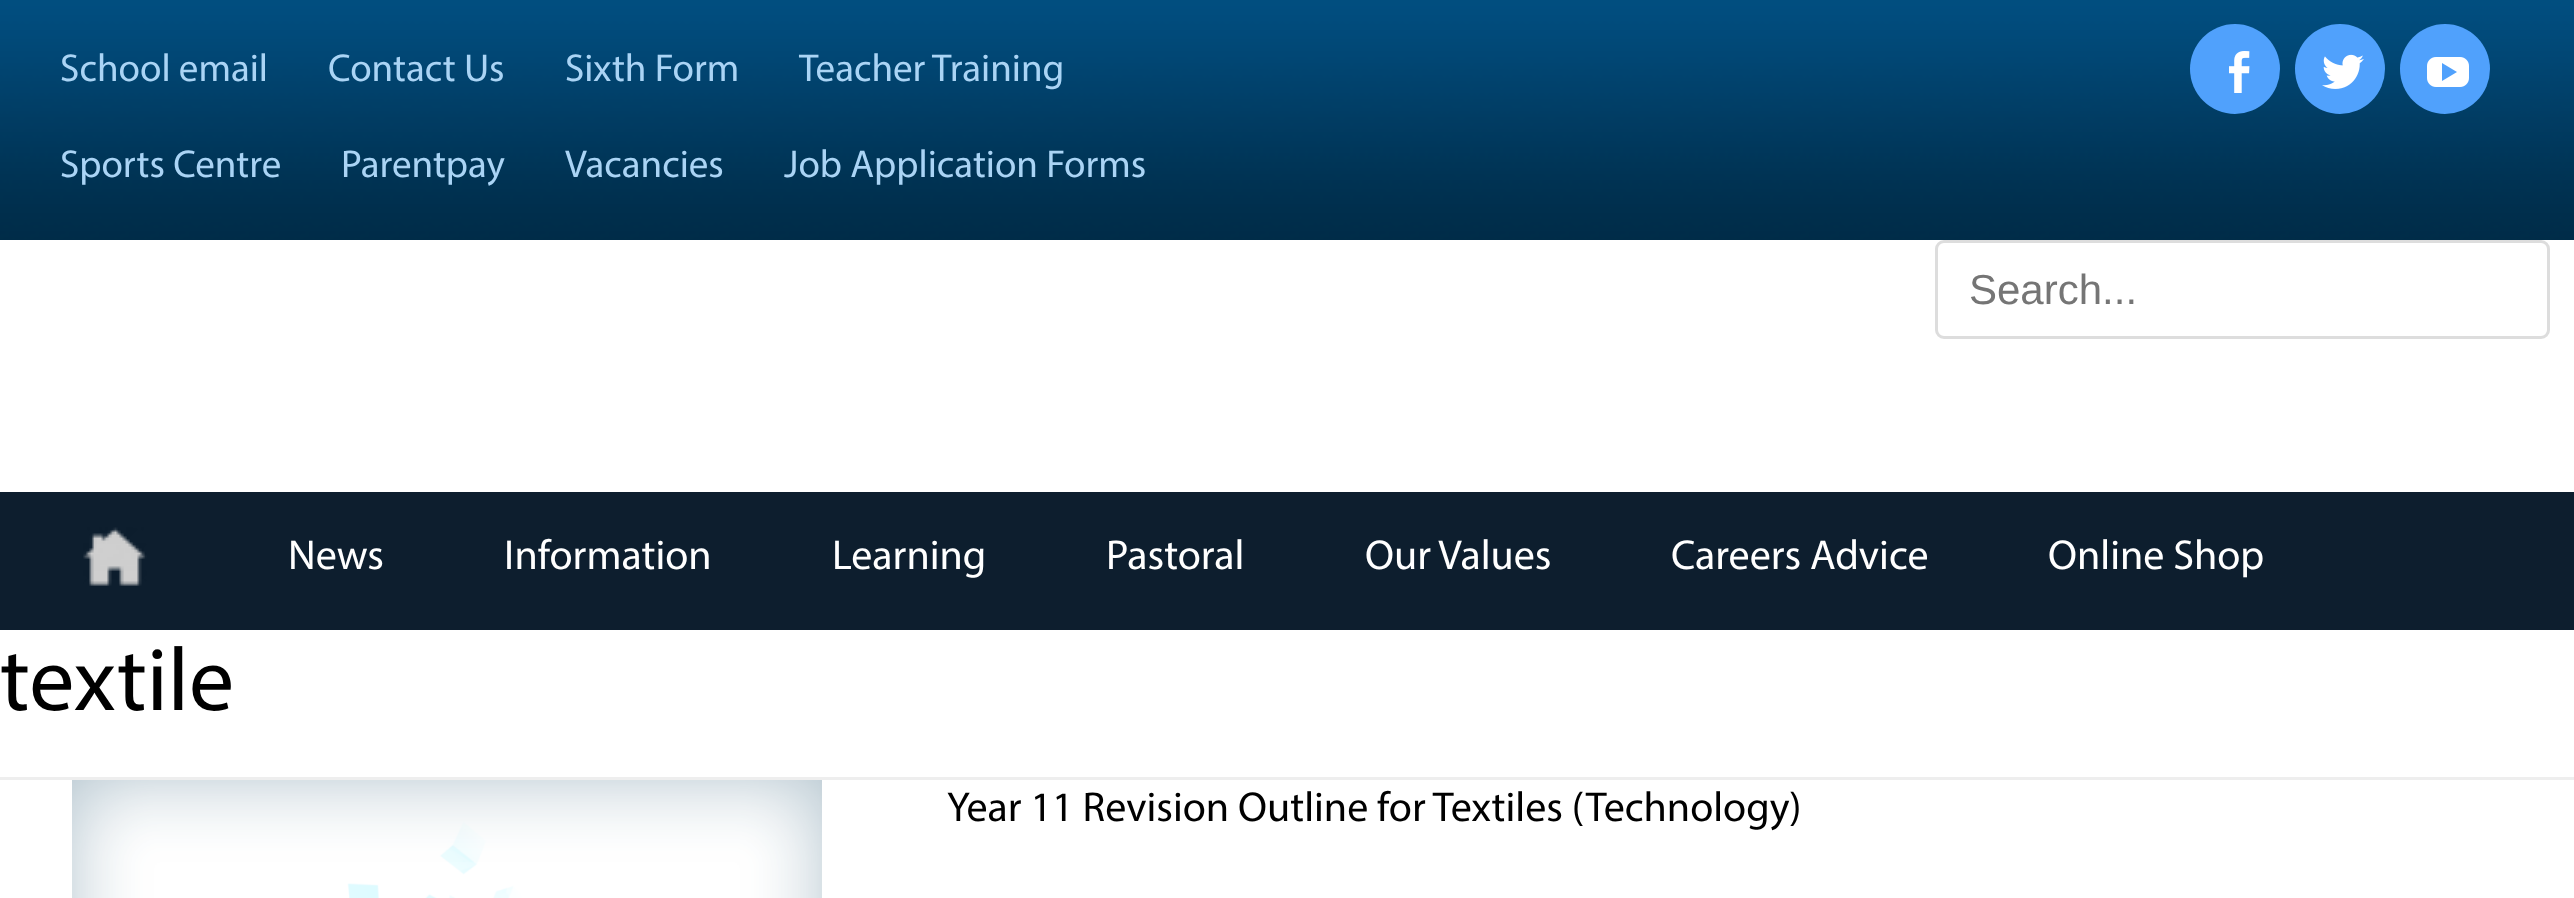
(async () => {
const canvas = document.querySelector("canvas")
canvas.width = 2574
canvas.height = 898
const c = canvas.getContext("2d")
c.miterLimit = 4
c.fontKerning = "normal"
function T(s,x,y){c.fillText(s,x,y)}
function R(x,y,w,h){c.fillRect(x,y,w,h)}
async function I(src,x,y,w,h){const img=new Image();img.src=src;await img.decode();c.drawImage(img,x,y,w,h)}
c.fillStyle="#0d1e2e"
R(0,0,2574,898)
await I("1.png",0,0,2574,240)
c.font="39px Myriad"
c.fillStyle="#aad4f5"
T("School email",60,81)
T("Contact Us",328,81)
T("Sixth Form",565,81)
T("Teacher Training",799,81)
T("Sports Centre",60,177)
T("Parentpay",341,177)
T("Vacancies",565,177)
T("Job Application Forms",784,177)
c.fillStyle="#50a1fc"
c.beginPath()
c.arc(2235,69,45,0,7)
c.fill()
await I("2.png",2229,51,21,42)
c.beginPath()
c.arc(2340,69,45,0,7)
c.fill()
await I("3.png",2322,54,42,35)
c.beginPath()
c.arc(2445,69,45,0,7)
c.fill()
await I("4.png",2427,57,42,30)
c.fillStyle="#fff"
R(0,240,2574,252)
c.beginPath()
c.roundRect(1936.5,241.5,612,96,7.5)
c.strokeStyle="#ddd"
c.lineWidth=3
c.stroke()
c.font="42px Liberation Sans"
c.fillStyle="#757575"
T("Search...",1969,304)
await I("5.png",83,527,64,59)
c.font="42px Myriad"
c.fillStyle="#fff"
T("News",288,569)
T("Information",504,569)
T("Learning",832,569)
T("Pastoral",1106,569)
T("Our Values",1365,569)
T("Careers Advice",1671,569)
T("Online Shop",2048,569)
R(0,630,2574,268)
c.fillStyle="#eee"
R(0,777,2574,3)
c.font="90px Myriad"
c.fillStyle="#000"
T("textile",0,710)
await I("6.png",72,780,750,118)
c.font="42px Myriad"
T("Year 11 Revision Outline for Textiles (Technology)",947,821)
})()
